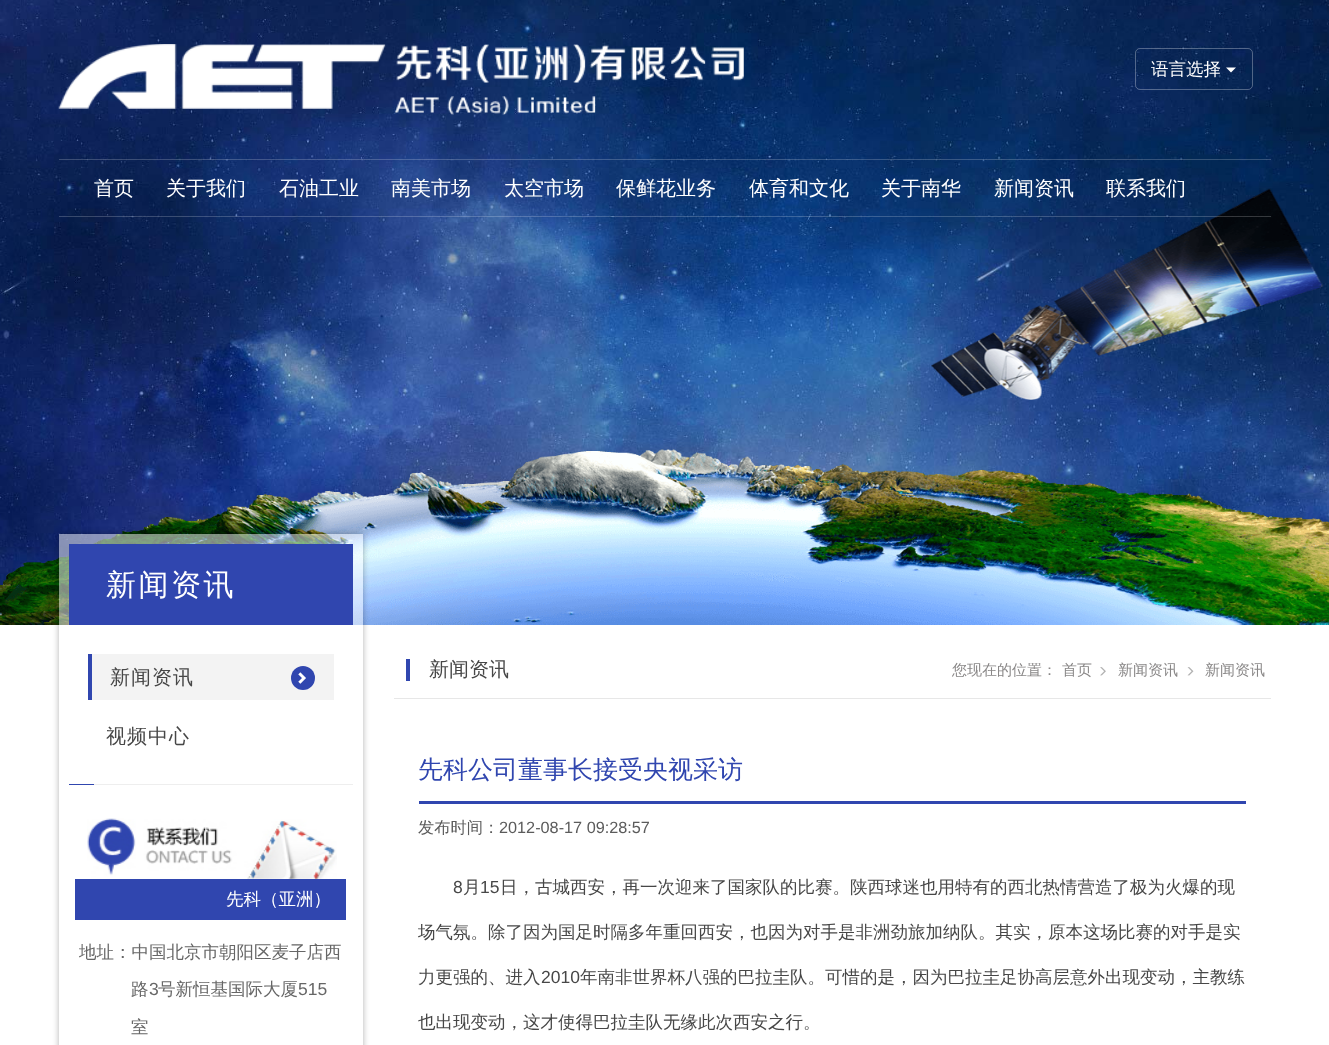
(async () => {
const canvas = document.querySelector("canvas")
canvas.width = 1329
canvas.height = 1045
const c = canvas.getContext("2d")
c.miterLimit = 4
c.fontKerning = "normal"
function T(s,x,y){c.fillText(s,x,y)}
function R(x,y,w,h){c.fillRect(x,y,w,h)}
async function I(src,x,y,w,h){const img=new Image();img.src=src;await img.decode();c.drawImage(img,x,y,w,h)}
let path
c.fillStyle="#fff"
R(0,0,1329,1045)
await I("1.png",0,0,1329,603)
await I("2.png",931,188,392,212)
await I("3.png",0,449,1329,176)
await I("4.png",58,44,686,71)
c.beginPath()
c.roundRect(1135.5,48.5,117,41,4.5)
c.strokeStyle="#ffffff4d"
c.stroke()
c.font="500 17.5px WenQuanYi Zen Hei"
T("语言选择",1151,75)
path = new Path2D("M1226 67.5h10l-5 5z")
c.fill(path)
c.fillStyle="#ffffff33"
R(59,159,1212,1)
R(59,216,1212,1)
c.font="500 20px WenQuanYi Zen Hei"
c.fillStyle="#fff"
T("首页",94,195)
T("关于我们",166,195)
T("石油工业",279,195)
T("南美市场",391,195)
T("太空市场",504,195)
T("保鲜花业务",616,195)
T("体育和文化",749,195)
T("关于南华",881,195)
T("新闻资讯",994,195)
T("联系我们",1106,195)
c.save()
path = new Path2D("M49 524h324v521h-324zm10 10h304v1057h-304z")
c.clip(path,"evenodd")
c.fillStyle="#0000004d"
c.filter="blur(3px)"
c.beginPath()
c.rect(59,534,304,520)
c.fill()
c.filter="none"
c.restore()
c.fillStyle="#ffffff80"
R(59,534,304,91)
c.fillStyle="#3046af"
R(69,544,284,81)
c.letterSpacing="2.5px"
c.font="500 30px WenQuanYi Zen Hei"
c.fillStyle="#fff"
T("新闻资讯",106,595)
R(362,625,1,420)
c.fillStyle="#f3f3f3"
R(92,654,242,46)
c.fillStyle="#3046af"
R(88,654,4,46)
c.letterSpacing="1px"
c.font="500 20px WenQuanYi Zen Hei"
c.fillStyle="#474747"
T("新闻资讯",110,684)
c.fillStyle="#3046af"
c.beginPath()
c.arc(303,678,12,0,7)
c.fill()
await I("5.png",298,672,8,12)
c.fillStyle="#474747"
T("视频中心",106,743)
c.fillStyle="#eee"
R(94,784,259,1)
c.fillStyle="#3046af"
R(69,784,25,1)
await I("6.png",87,818,250,61)
R(75,879,271,41)
c.letterSpacing="0px"
c.font="500 17.5px WenQuanYi Zen Hei"
c.fillStyle="#fff"
T("先科（亚洲）",226,905)
c.fillStyle="#666"
T("地址：中国北京市朝阳区麦子店西",79,958)
T("路",131,995)
c.font="17.5px Liberation Sans"
T("3",149,995)
c.font="500 17.5px WenQuanYi Zen Hei"
T("号新恒基国际大厦",158,995)
c.font="17.5px Liberation Sans"
T("515",298,995)
c.font="500 17.5px WenQuanYi Zen Hei"
T("室",131,1033)
c.fillStyle="#e7e7e7"
R(394,698,877,1)
c.fillStyle="#3046af"
R(406,659,4,22)
c.font="500 20px WenQuanYi Zen Hei"
c.fillStyle="#474747"
T("新闻资讯",429,676)
c.font="500 15px WenQuanYi Zen Hei"
c.fillStyle="#898787"
T("您现在的位置：",952,675)
T("首页",1062,675)
await I("7.png",1100,667,6,9)
T("新闻资讯",1118,675)
await I("8.png",1187,667,7,9)
T("新闻资讯",1205,675)
c.fillStyle="#3046af"
R(419,801,827,3)
c.font="500 25px WenQuanYi Zen Hei"
T("先科公司董事长接受央视采访",418,778)
c.font="500 16.25px WenQuanYi Zen Hei"
c.fillStyle="#5b5b5b"
T("发布时间：",418,833)
c.font="16.25px Liberation Sans"
T("2012-08-17 09:28:57",499,833)
c.font="17.5px Liberation Sans"
c.fillStyle="#474747"
T("8",453,893)
c.font="500 17.5px WenQuanYi Zen Hei"
T("月",463,893)
c.font="17.5px Liberation Sans"
T("15",480,893)
c.font="500 17.5px WenQuanYi Zen Hei"
T("日，古城西安，再一次迎来了国家队的比赛。陕西球迷也用特有的西北热情营造了极为火爆的现",500,893)
T("场气氛。除了因为国足时隔多年重回西安，也因为对手是非洲劲旅加纳队。其实，原本这场比赛的对手是实",418,938)
T("力更强的、进入",418,983)
c.font="17.5px Liberation Sans"
T("2010",541,983)
c.font="500 17.5px WenQuanYi Zen Hei"
T("年南非世界杯八强的巴拉圭队。可惜的是，因为巴拉圭足协高层意外出现变动，主教练",580,983)
T("也出现变动，这才使得巴拉圭队无缘此次西安之行。",418,1028)
})()
